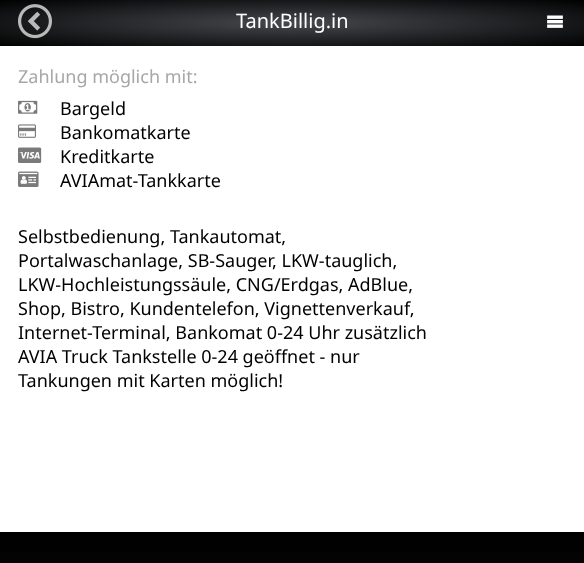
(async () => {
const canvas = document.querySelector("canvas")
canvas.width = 584
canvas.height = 563
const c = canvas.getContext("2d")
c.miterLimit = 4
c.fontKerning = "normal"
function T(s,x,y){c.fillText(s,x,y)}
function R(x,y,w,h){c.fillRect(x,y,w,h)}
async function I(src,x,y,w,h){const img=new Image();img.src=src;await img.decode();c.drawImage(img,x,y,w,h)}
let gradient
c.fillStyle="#fff"
R(0,0,584,563)
gradient = c.createRadialGradient(292,287.85,0,292,287.85,413)
gradient.addColorStop(0,"#45484d")
gradient.addColorStop(1,"#000")
c.fillStyle = gradient
c.beginPath()
c.rect(0,0,584,46)
c.save()
c.clip()
c.scale(1,33 / 413)
c.fillRect(0,0,584,7047)
c.restore()
await I("1.png",18,4,34,35)
c.font="20px Noto Sans"
c.fillStyle="#fff"
T("TankBillig.in",236,28)
await I("2.png",547,15,16,13)
c.font="18px Noto Sans"
c.fillStyle="#a7a7a7"
T("Zahlung möglich mit:",18,83)
await I("3.png",18,100,20,14)
c.fillStyle="#000"
T("Bargeld",60,115)
await I("4.png",18,124,18,14)
T("Bankomatkarte",60,139)
await I("5.png",18,147,24,16)
T("Kreditkarte",60,163)
await I("6.png",18,171,21,16)
T("AVIAmat-Tankkarte",60,187)
T("Selbstbedienung, Tankautomat,",18,243)
T("Portalwaschanlage, SB-Sauger, LKW-tauglich,",18,267)
T("LKW-Hochleistungssäule, CNG/Erdgas, AdBlue,",18,291)
T("Shop, Bistro, Kundentelefon, Vignettenverkauf,",18,315)
T("Internet-Terminal, Bankomat 0-24 Uhr zusätzlich",18,339)
T("AVIA Truck Tankstelle 0-24 geöffnet - nur",18,363)
T("Tankungen mit Karten möglich!",18,387)
gradient = c.createLinearGradient(292,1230,292,532)
gradient.addColorStop(0,"#45484d")
gradient.addColorStop(1,"#000")
c.fillStyle = gradient
R(0,532,584,31)
})()
